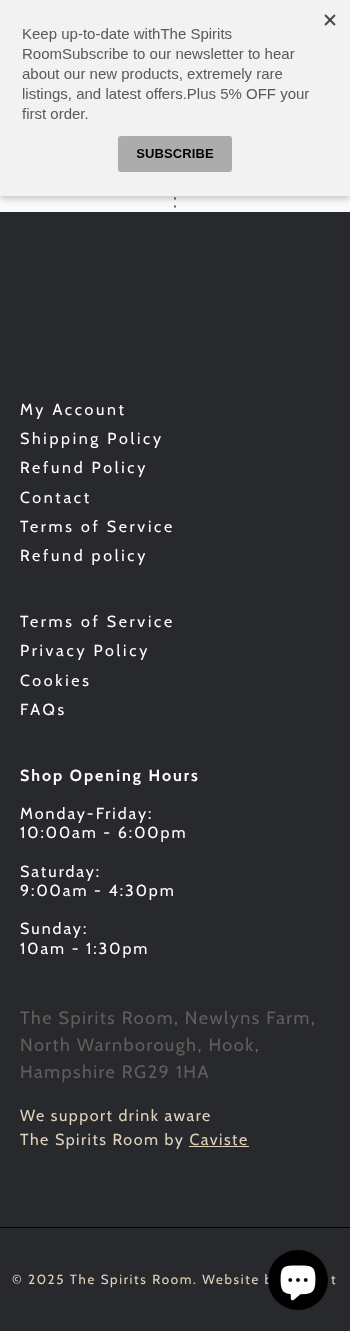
(async () => {
const canvas = document.querySelector("canvas")
canvas.width = 350
canvas.height = 1331
const c = canvas.getContext("2d")
c.miterLimit = 4
c.fontKerning = "normal"
function T(s,x,y){c.fillText(s,x,y)}
function R(x,y,w,h){c.fillRect(x,y,w,h)}
async function I(src,x,y,w,h){const img=new Image();img.src=src;await img.decode();c.drawImage(img,x,y,w,h)}
let path
c.fillStyle="#f9fafa"
R(0,0,350,1331)
path = new Path2D("M175 158.5v2m0 6v2m0 6v1.5m0 6v2m0 6v1.5m0 6v2m0 6v2")
c.strokeStyle="#2a2c31"
c.lineWidth=1.5
c.lineJoin="round"
c.stroke(path)
c.fillStyle="#00000033"
c.filter="blur(3px)"
c.beginPath()
c.rect(0,3,350,196)
c.fill()
c.filter="none"
await I("1.png",0,0,350,196)
c.fillStyle="#28292d"
R(0,212,350,1015)
c.letterSpacing="2.7px"
c.font="16px Cabin"
c.fillStyle="#fff"
T("My Account",20,415)
T("Shipping Policy",20,444)
T("Refund Policy",20,473)
T("Contact",20,503)
T("Terms of Service",20,532)
T("Refund policy",20,561)
T("Terms of Service",20,627)
T("Privacy Policy",20,656)
T("Cookies",20,686)
T("FAQs",20,715)
c.letterSpacing="2px"
c.font="bold 16px Cabin"
T("Shop Opening Hours",20,781)
c.font="16px Cabin"
T("Monday-Friday:",20,819)
T("10:00am - 6:00pm",20,838)
T("Saturday:",20,877)
T("9:00am - 4:30pm",20,896)
T("Sunday:",20,934)
T("10am - 1:30pm",20,954)
c.letterSpacing="1.5px"
c.font="18px Cabin"
c.fillStyle="#635e5b"
T("The Spirits Room, Newlyns Farm,",20,1024)
T("North Warnborough, Hook,",20,1051)
T("Hampshire RG29 1HA",20,1078)
c.font="16px Cabin"
c.fillStyle="#e1d2bc"
T("We support drink aware",20,1121)
T("The Spirits Room by Caviste",20,1145)
R(189,1146,60,1)
c.fillStyle="#28292d"
R(0,1228,350,103)
c.fillStyle="#000"
R(0,1227,350,1)
c.letterSpacing="1.7px"
c.font="13.3px Cabin"
c.fillStyle="#e1d2bc"
T("© 2025 The Spirits Room. Website b",12,1284)
T("t",331,1284)
c.fillStyle="#000"
c.beginPath()
c.arc(298,1280,30,0,7)
c.fill()
await I("2.png",280,1265,36,36)
})()
